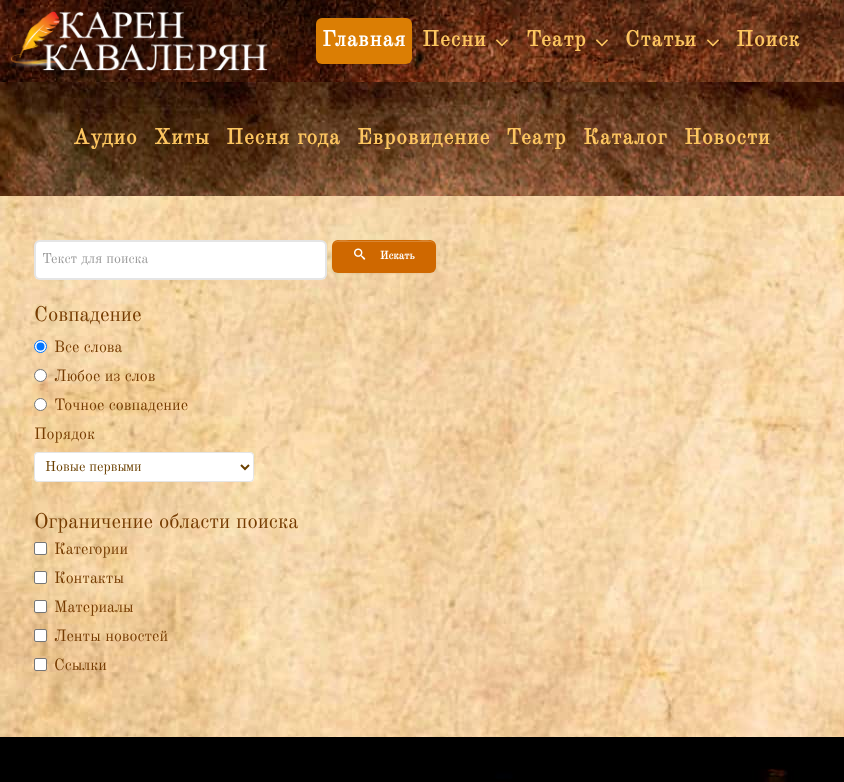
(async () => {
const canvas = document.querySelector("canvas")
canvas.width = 844
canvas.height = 782
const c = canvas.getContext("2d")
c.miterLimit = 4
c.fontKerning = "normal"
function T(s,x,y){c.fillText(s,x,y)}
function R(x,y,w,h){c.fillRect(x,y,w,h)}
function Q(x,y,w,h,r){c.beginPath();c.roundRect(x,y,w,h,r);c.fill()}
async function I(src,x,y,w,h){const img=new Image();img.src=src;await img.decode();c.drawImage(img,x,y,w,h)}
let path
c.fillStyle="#fff"
R(0,0,844,782)
await I("1.png",0,196,844,541)
await I("2.png",0,0,844,82)
await I("3.png",10,11,258,61)
c.fillStyle="#db7e04"
Q(316,18,96,46,6)
c.letterSpacing="1px"
c.font="bold 21.5px Old Standard TT"
c.fillStyle="#fff"
T("Главная",322,46)
c.fillStyle="#fcc560"
T("Песни",422,46)
await I("4.png",496,39,12,8)
T("Театр",526,46)
await I("5.png",596,39,12,8)
T("Статьи",625,46)
await I("6.png",707,39,12,8)
T("Поиск",736,46)
await I("7.png",0,82,844,114)
T("Аудио",73,144)
T("Хиты",154,144)
T("Песня года",226,144)
T("Евровидение",357,144)
T("Театр",506,144)
T("Каталог",583,144)
T("Новости",684,144)
c.fillStyle="#fff"
Q(34,240,293,40,6)
c.beginPath()
c.roundRect(35,241,291,38,5)
c.strokeStyle="#0000001a"
c.lineWidth=2
c.stroke()
c.letterSpacing="0px"
c.font="14px Old Standard TT"
c.fillStyle="#999"
T("Текст для поиска",42,263)
c.fillStyle="#0000000d"
c.filter="blur(1px)"
c.beginPath()
c.roundRect(332,241,104,33,6)
c.fill()
c.filter="none"
c.fillStyle="#cf6800"
Q(332,240,104,33,6)
c.fillStyle="#d98633"
path = new Path2D("M338 242h92c3 0 5 2 5 5c0-10-15-6-20-6h-62c-5 0-20-4-20 6c0-3 2-5 5-5z")
c.fill(path)
await I("8.png",354,248,12,12)
c.font="bold 11px Old Standard TT"
c.fillStyle="#fff"
T("Искать",380,259)
c.font="20.75px Old Standard TT"
c.fillStyle="#753b01"
T("Совпадение",34,321)
c.fillStyle="#fff"
c.beginPath()
c.arc(40.5,346.5,6,0,7)
c.fill()
c.strokeStyle="#0075ff"
c.lineWidth=1
c.stroke()
c.fillStyle="#0075ff"
c.beginPath()
c.arc(40.5,346.5,4,0,7)
c.fill()
c.font="16px Old Standard TT"
c.fillStyle="#753b01"
T("Все слова",54,352)
c.fillStyle="#fff"
c.beginPath()
c.arc(40.5,375.5,6,0,7)
c.fill()
c.strokeStyle="#767676"
c.stroke()
c.fillStyle="#753b01"
T("Любое из слов",54,381)
c.fillStyle="#fff"
c.beginPath()
c.arc(40.5,404.5,6,0,7)
c.fill()
c.stroke()
c.fillStyle="#753b01"
T("Точное совпадение",54,410)
T("Порядок",34,439)
c.fillStyle="#fff"
Q(34,452,220,30,4)
c.beginPath()
c.roundRect(34.5,452.5,219,29,3.5)
c.strokeStyle="#0000001a"
c.stroke()
path = new Path2D("M241 465l4 4l4-4")
c.strokeStyle="#6b4000"
c.lineWidth=2
c.stroke(path)
c.font="14px Old Standard TT"
c.fillStyle="#6b4000"
T("Новые первыми",45,471)
c.font="20.75px Old Standard TT"
c.fillStyle="#753b01"
T("Ограничение области поиска",34,528)
c.fillStyle="#fff"
c.beginPath()
c.roundRect(34.5,542.5,12,12,1.5)
c.fill()
c.strokeStyle="#767676"
c.lineWidth=1
c.stroke()
c.font="16px Old Standard TT"
c.fillStyle="#753b01"
T("Категории",54,554)
c.fillStyle="#fff"
c.beginPath()
c.roundRect(34.5,571.5,12,12,1.5)
c.fill()
c.stroke()
c.fillStyle="#753b01"
T("Контакты",54,583)
c.fillStyle="#fff"
c.beginPath()
c.roundRect(34.5,600.5,12,12,1.5)
c.fill()
c.stroke()
c.fillStyle="#753b01"
T("Материалы",54,612)
c.fillStyle="#fff"
c.beginPath()
c.roundRect(34.5,629.5,12,12,1.5)
c.fill()
c.stroke()
c.fillStyle="#753b01"
T("Ленты новостей",54,641)
c.fillStyle="#fff"
c.beginPath()
c.roundRect(34.5,658.5,12,12,1.5)
c.fill()
c.stroke()
c.fillStyle="#753b01"
T("Ссылки",54,670)
await I("9.png",0,737,844,45)
})()
